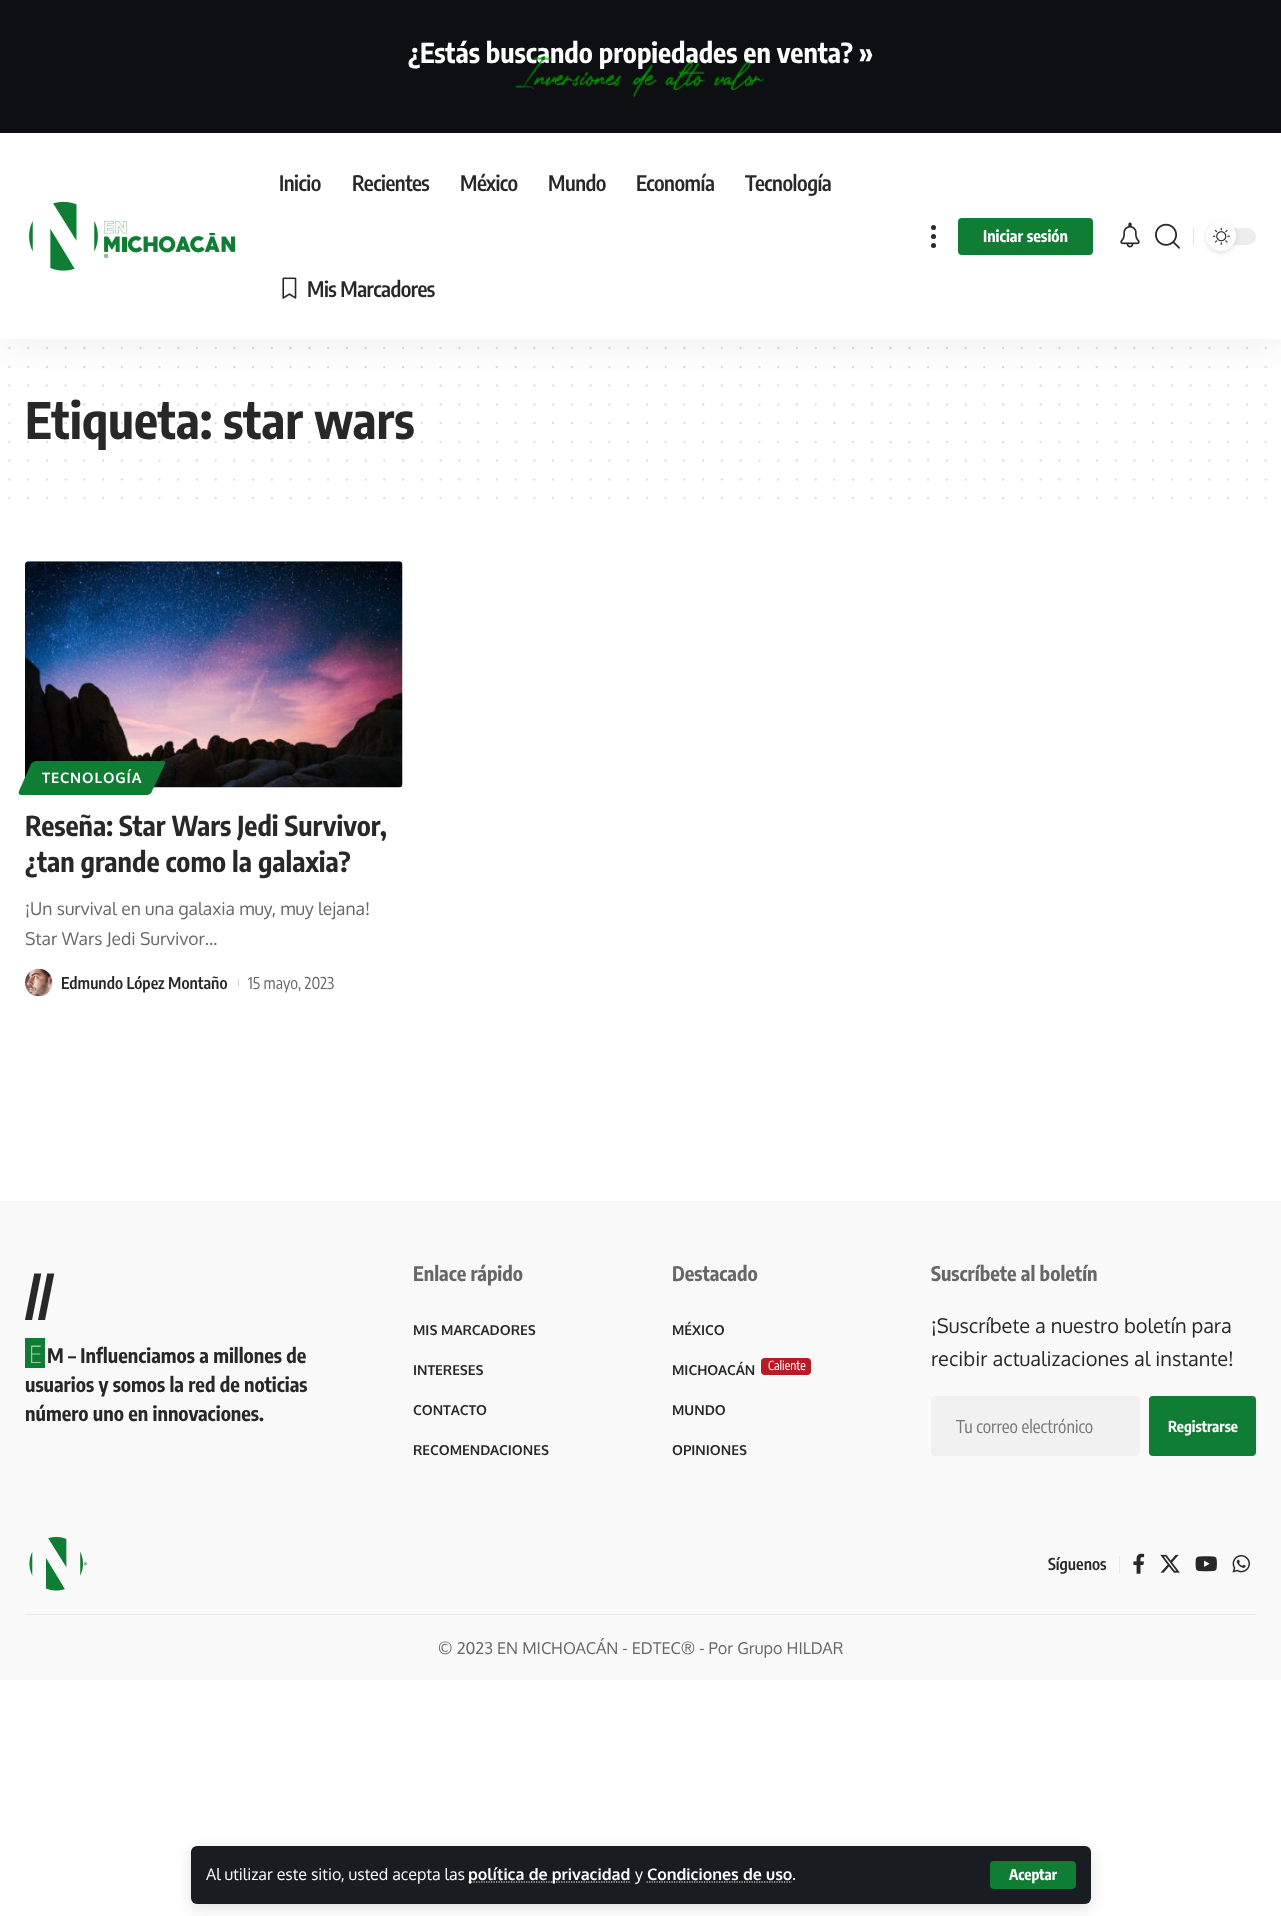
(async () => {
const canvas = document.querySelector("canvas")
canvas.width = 1281
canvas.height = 1916
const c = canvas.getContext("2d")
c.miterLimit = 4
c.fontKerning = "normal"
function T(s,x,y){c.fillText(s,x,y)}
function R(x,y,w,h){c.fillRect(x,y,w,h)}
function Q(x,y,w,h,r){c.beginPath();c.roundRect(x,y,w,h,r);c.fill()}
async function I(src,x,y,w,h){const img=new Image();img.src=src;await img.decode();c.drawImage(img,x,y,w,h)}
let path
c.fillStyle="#fff"
R(0,0,1281,1916)
c.fillStyle="#0e0f12"
R(0,0,1281,133)
c.font="bold 27.5px Encode Sans Condensed"
c.fillStyle="#fff"
T("¿Estás buscando propiedades en venta? »",408,63)
await I("1.png",515,56,250,42)
path = new Path2D("M9.4 348.1h1256.5")
c.strokeStyle="#dfdfdf"
c.lineWidth=2.5
c.lineCap="round"
c.setLineDash([0,18.75])
c.stroke(path)
path = new Path2D("M9.4 366.9h1256.5")
c.stroke(path)
path = new Path2D("M9.4 385.6h1256.5")
c.stroke(path)
c.save()
c.beginPath()
c.rect(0,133,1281,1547)
c.clip()
c.fillStyle="#00000012"
c.filter="blur(19px)"
c.beginPath()
c.rect(0,138,1281,206)
c.fill()
c.filter="none"
c.restore()
R(0,133,1281,206)
await I("2.png",29,201,207,70)
c.letterSpacing="-0.5px"
c.font="600 21.25px Encode Sans Condensed"
c.fillStyle="#282828"
T("Inicio",279,191)
T("Recientes",352,191)
T("México",460,191)
T("Mundo",548,191)
T("Economía",636,191)
T("Tecnología",745,191)
await I("3.png",282,277,15,22)
T("Mis Marcadores",307,297)
c.beginPath()
c.arc(933.5,227.5,2.5,0,7)
c.fill()
c.beginPath()
c.arc(933.5,236.5,2.5,0,7)
c.fill()
c.beginPath()
c.arc(933.5,245.5,2.5,0,7)
c.fill()
c.fillStyle="#107d35"
Q(958,218,135,37,4)
c.letterSpacing="0px"
c.font="bold 16px Encode Sans Condensed"
c.fillStyle="#fff"
T("Iniciar sesión",983,242)
await I("4.png",1120,222,20,26)
await I("5.png",1155,223,25,26)
c.fillStyle="#e4e4e4"
R(1193,228,1,17)
c.fillStyle="#ededed"
Q(1206,228,50,17,8.5)
c.fillStyle="#0000001f"
c.filter="blur(2.5px)"
c.beginPath()
c.roundRect(1206,223,30,30,15)
c.fill()
c.filter="none"
c.fillStyle="#fff"
c.beginPath()
c.arc(1221,236,15,0,7)
c.fill()
await I("6.png",1213,228,17,17)
c.fillStyle="#0000001f"
c.filter="blur(7.5px)"
c.beginPath()
c.roundRect(191,1850,900,58,6)
c.fill()
c.filter="none"
c.fillStyle="#191c20"
Q(191,1846,900,58,6)
c.font="16px Oxygen"
c.fillStyle="#fff"
T("Al utilizar este sitio, usted acepta las",206,1880)
path = new Path2D("M468.5 1882h162")
c.strokeStyle="#fff"
c.lineWidth=1.2
c.lineCap="butt"
c.setLineDash([1.25,1.25])
c.stroke(path)
c.font="bold 16px Oxygen"
T("política de privacidad",468,1880)
c.font="16px Oxygen"
T("y",635,1880)
c.font="bold 16px Oxygen"
T("Condiciones de uso",647,1880)
path = new Path2D("M646.5 1882h145.5")
c.stroke(path)
c.font="16px Oxygen"
T(".",792,1880)
c.fillStyle="#107d35"
Q(990,1861,86,28,4)
c.font="bold 15px Encode Sans Condensed"
c.fillStyle="#fff"
T("Aceptar",1009,1880)
c.font="bold 50px Encode Sans Condensed"
c.fillStyle="#282828"
T("Etiqueta: star wars",25,439)
path = new Path2D("M9.4 404.4h1256.5")
c.strokeStyle="#28282826"
c.lineWidth=2.5
c.lineCap="round"
c.setLineDash([0,18.75])
c.stroke(path)
path = new Path2D("M9.4 423.1h1256.5")
c.stroke(path)
path = new Path2D("M9.4 441.9h1256.5")
c.stroke(path)
path = new Path2D("M9.4 460.6h1256.5")
c.strokeStyle="#dfdfdf"
c.stroke(path)
path = new Path2D("M9.4 479.4h1256.5")
c.stroke(path)
path = new Path2D("M9.4 498.1h1256.5")
c.stroke(path)
await I("7.png",25,561,378,227)
c.fillStyle="#107d35"
path = new Path2D("M37 761h126c2 0 3 1 2 3l-13 27c0 2-3 4-5 4h-126c-2 0-3-2-2-4l12-27c1-2 4-3 6-3z")
c.fill(path)
c.letterSpacing="0.9px"
c.font="bold 14.5px Oxygen"
c.fillStyle="#fff"
T("TECNOLOGÍA",42,783)
c.letterSpacing="0px"
c.font="bold 27.5px Encode Sans Condensed"
c.fillStyle="#282828"
T("Reseña: Star Wars Jedi Survivor,",25,836)
T("¿tan grande como la galaxia?",25,872)
c.font="17.5px Oxygen"
c.fillStyle="#676767"
T("¡Un survival en una galaxia muy, muy lejana!",25,915)
T("Star Wars Jedi Survivor…",25,945)
await I("8.png",25,968,28,29)
c.font="600 16.25px Encode Sans Condensed"
c.fillStyle="#282828"
T("Edmundo López Montaño",61,989)
c.fillStyle="#d1d1d1"
R(238,979,1,7)
c.font="16.25px Encode Sans Condensed"
c.fillStyle="#676767"
T("15 mayo, 2023",248,989)
c.fillStyle="#f9f9f9"
R(0,1201,1281,479)
c.font="bold 50px Encode Sans Condensed"
c.fillStyle="#282828"
T("//",25,1314)
c.fillStyle="#107d35"
R(25,1338,20,30)
c.font="100 24px Noto Sans"
c.fillStyle="#fff"
T("E",29,1363)
c.font="bold 20px Encode Sans Condensed"
c.fillStyle="#282828"
T("M – Influenciamos a millones de",47,1363)
T("usuarios y somos la red de noticias",25,1392)
T("número uno en innovaciones.",25,1421)
c.fillStyle="#676767"
T("Enlace rápido",413,1281)
c.font="bold 13.75px Oxygen"
c.fillStyle="#282828"
T("MIS MARCADORES",413,1335)
T("INTERESES",413,1375)
T("CONTACTO",413,1415)
T("RECOMENDACIONES",413,1455)
c.font="bold 20px Encode Sans Condensed"
c.fillStyle="#676767"
T("Destacado",672,1281)
c.font="bold 13.75px Oxygen"
c.fillStyle="#282828"
T("MÉXICO",672,1335)
T("MICHOACÁN",672,1375)
c.fillStyle="#b51c26"
Q(761,1358,50,17,4)
c.font="12.5px Encode Sans Condensed"
c.fillStyle="#fff"
T("Caliente",768,1370)
c.font="bold 13.75px Oxygen"
c.fillStyle="#282828"
T("MUNDO",672,1415)
T("OPINIONES",672,1455)
c.font="bold 20px Encode Sans Condensed"
c.fillStyle="#676767"
T("Suscríbete al boletín",931,1281)
c.font="20px Oxygen"
c.fillStyle="#282828"
T("¡Suscríbete a nuestro boletín para",931,1333)
T("recibir actualizaciones al instante!",931,1366)
c.fillStyle="#f1f1f1"
Q(931,1396,209,60,4)
c.font="17.5px Encode Sans Condensed"
c.fillStyle="#757575"
T("Tu correo electrónico",956,1433)
c.fillStyle="#107d35"
Q(1149,1396,107,60,4)
c.font="bold 15px Encode Sans Condensed"
c.fillStyle="#fff"
T("Registrarse",1168,1432)
await I("9.png",29,1537,58,54)
c.fillStyle="#e8e8e8"
R(1119,1556,1,17)
c.font="600 16.25px Encode Sans Condensed"
c.fillStyle="#282828"
T("Síguenos",1048,1570)
await I("10.png",1133,1553,12,21)
await I("11.png",1160,1554,20,19)
await I("12.png",1195,1556,22,16)
await I("13.png",1232,1555,18,18)
c.fillStyle="#e8e8e8"
R(25,1614,1231,1)
c.font="16.25px Oxygen"
c.fillStyle="#676767"
T("© 2023 EN MICHOACÁN - EDTEC® - Por Grupo HILDAR",438,1654)
})()
